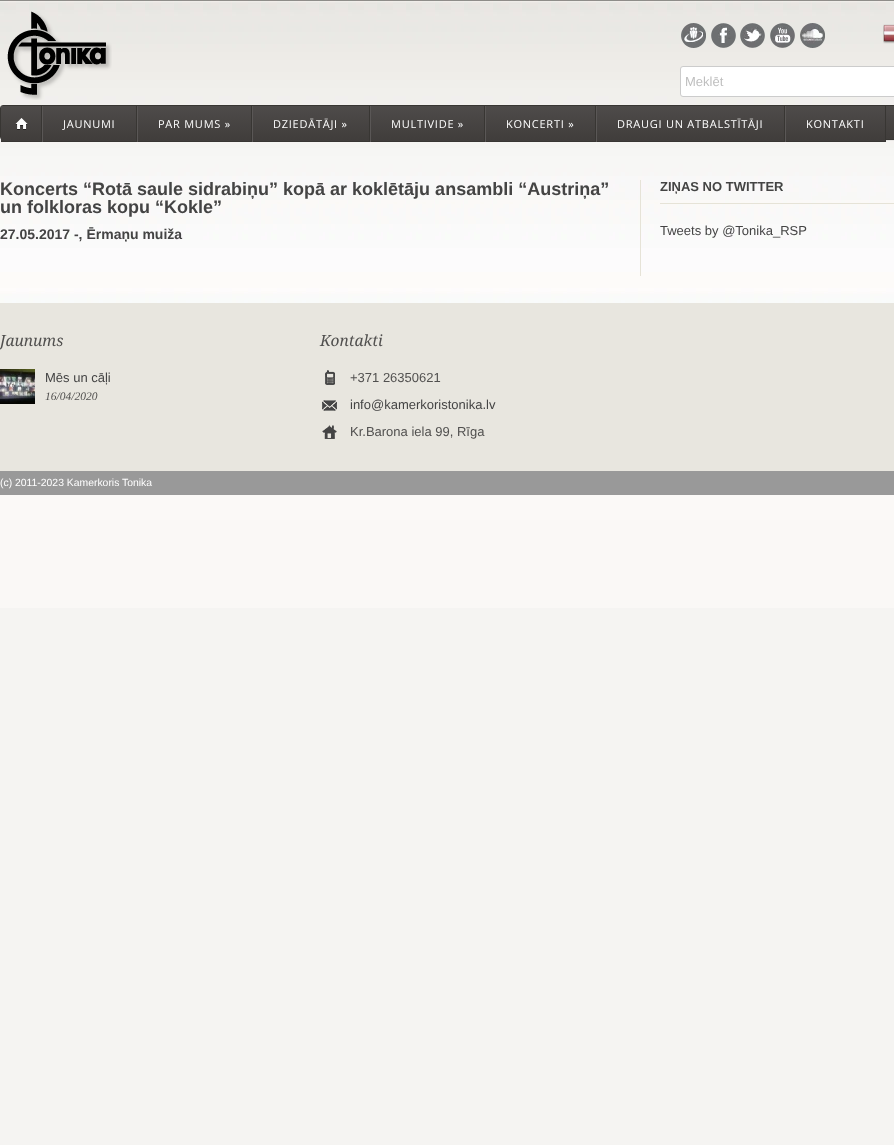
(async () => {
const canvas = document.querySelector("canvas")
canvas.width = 894
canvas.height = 1145
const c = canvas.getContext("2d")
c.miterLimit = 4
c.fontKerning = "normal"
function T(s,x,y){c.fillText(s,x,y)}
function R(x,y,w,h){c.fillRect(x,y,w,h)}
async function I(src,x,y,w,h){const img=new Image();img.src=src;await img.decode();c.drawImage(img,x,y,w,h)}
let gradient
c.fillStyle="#f5f4f2"
R(0,0,894,1145)
await I("1.png",0,0,894,608)
await I("2.png",7,11,105,89)
await I("3.png",681,23,25,25)
await I("4.png",711,23,25,25)
await I("5.png",740,23,25,25)
await I("6.png",770,23,25,25)
await I("7.png",800,23,25,25)
await I("8.png",883,24,11,20)
c.fillStyle="#fff"
c.beginPath()
c.roundRect(680.5,66.5,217,30,2.5)
c.fill()
c.strokeStyle="#ccc"
c.stroke()
c.font="13px Liberation Sans"
c.fillStyle="#bfbfbf"
T("Meklēt",685,86)
c.fillStyle="#0000000d"
c.filter="blur(0.5px)"
c.beginPath()
c.roundRect(0,106,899,35,3)
c.fill()
c.filter="none"
gradient = c.createLinearGradient(470,106,470,139)
gradient.addColorStop(0,"#4e4b4a")
gradient.addColorStop(1,"#403d3b")
c.fillStyle = gradient
R(886,106,8,33)
c.beginPath()
c.roundRect(.5,105.5,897,34,2.5)
c.strokeStyle="#383633"
c.stroke()
gradient = c.createLinearGradient(21,106,21,141)
gradient.addColorStop(0,"#4e4b4a")
gradient.addColorStop(1,"#403d3b")
c.fillStyle = gradient
R(1,106,40,35)
c.fillStyle="#383633"
R(41,106,1,36)
R(1,141,41,1)
await I("9.png",15,118,13,12)
gradient = c.createLinearGradient(90,106,90,141)
gradient.addColorStop(0,"#4e4b4a")
gradient.addColorStop(1,"#403d3b")
c.fillStyle = gradient
R(43,106,93,35)
c.fillStyle="#383633"
R(136,106,1,36)
R(42,141,95,1)
c.fillStyle="#5a5756"
R(42,106,1,36)
c.letterSpacing="0.75px"
c.font="11px Open Sans"
c.fillStyle="#fff"
T("JAUNUMI",63,128)
gradient = c.createLinearGradient(195,106,195,141)
gradient.addColorStop(0,"#4e4b4a")
gradient.addColorStop(1,"#403d3b")
c.fillStyle = gradient
R(138,106,113,35)
c.fillStyle="#383633"
R(251,106,1,36)
R(137,141,115,1)
c.fillStyle="#5a5756"
R(137,106,1,36)
c.fillStyle="#fff"
T("PAR MUMS »",158,128)
gradient = c.createLinearGradient(311,106,311,141)
gradient.addColorStop(0,"#4e4b4a")
gradient.addColorStop(1,"#403d3b")
c.fillStyle = gradient
R(253,106,116,35)
c.fillStyle="#383633"
R(369,106,1,36)
R(252,141,118,1)
c.fillStyle="#5a5756"
R(252,106,1,36)
c.fillStyle="#fff"
T("DZIEDĀTĀJI »",273,128)
gradient = c.createLinearGradient(428,106,428,141)
gradient.addColorStop(0,"#4e4b4a")
gradient.addColorStop(1,"#403d3b")
c.fillStyle = gradient
R(371,106,113,35)
c.fillStyle="#383633"
R(484,106,1,36)
R(370,141,115,1)
c.fillStyle="#5a5756"
R(370,106,1,36)
c.fillStyle="#fff"
T("MULTIVIDE »",391,128)
gradient = c.createLinearGradient(541,106,541,141)
gradient.addColorStop(0,"#4e4b4a")
gradient.addColorStop(1,"#403d3b")
c.fillStyle = gradient
R(486,106,109,35)
c.fillStyle="#383633"
R(595,106,1,36)
R(485,141,111,1)
c.fillStyle="#5a5756"
R(485,106,1,36)
c.fillStyle="#fff"
T("KONCERTI »",506,128)
gradient = c.createLinearGradient(691,106,691,141)
gradient.addColorStop(0,"#4e4b4a")
gradient.addColorStop(1,"#403d3b")
c.fillStyle = gradient
R(597,106,187,35)
c.fillStyle="#383633"
R(784,106,1,36)
R(596,141,189,1)
c.fillStyle="#5a5756"
R(596,106,1,36)
c.fillStyle="#fff"
T("DRAUGI UN ATBALSTĪTĀJI",617,128)
gradient = c.createLinearGradient(836,106,836,141)
gradient.addColorStop(0,"#4e4b4a")
gradient.addColorStop(1,"#403d3b")
c.fillStyle = gradient
R(786,106,99,35)
c.fillStyle="#383633"
R(885,106,1,36)
R(785,141,101,1)
c.fillStyle="#5a5756"
R(785,106,1,36)
c.fillStyle="#fff"
T("KONTAKTI",806,128)
c.letterSpacing="0px"
c.font="bold 18px Liberation Sans"
c.fillStyle="#444"
T("Koncerts “Rotā saule sidrabiņu” kopā ar koklētāju ansambli “Austriņa”",0,195)
T("un folkloras kopu “Kokle”",0,213)
c.font="bold 14px Liberation Sans"
T("27.05.2017 -, Ērmaņu muiža",0,239)
c.fillStyle="#e6e3d7"
R(640,180,1,96)
R(660,203,234,1)
c.font="bold 13px Liberation Sans"
c.fillStyle="#444"
T("ZIŅAS NO TWITTER",660,191)
c.font="13px Liberation Sans"
T("Tweets by @Tonika_RSP",660,235)
c.fillStyle="#e8e6df"
R(0,303,894,168)
c.font="italic 15.5px Droid Serif"
c.fillStyle="#51504f"
T("Jaunums",0,346)
await I("10.png",0,369,35,35)
c.font="13px Liberation Sans"
c.fillStyle="#444"
T("Mēs un cāļi",45,382)
c.font="italic 11.5px Liberation Serif"
c.fillStyle="#51504f"
T("16/04/2020",45,400)
c.font="italic 15.5px Droid Serif"
T("Kontakti",320,346)
await I("11.png",325,370,10,15)
c.font="13px Liberation Sans"
T("+371 26350621",350,382)
await I("12.png",322,400,15,11)
c.fillStyle="#444"
T("info@kamerkoristonika.lv",350,409)
await I("13.png",322,425,15,14)
c.fillStyle="#51504f"
T("Kr.Barona iela 99, Rīga",350,436)
c.fillStyle="#999"
R(0,471,894,24)
c.font="10.4px Liberation Sans"
c.fillStyle="#fff"
T("(c) 2011-2023 Kamerkoris Tonika",0,486)
})()
